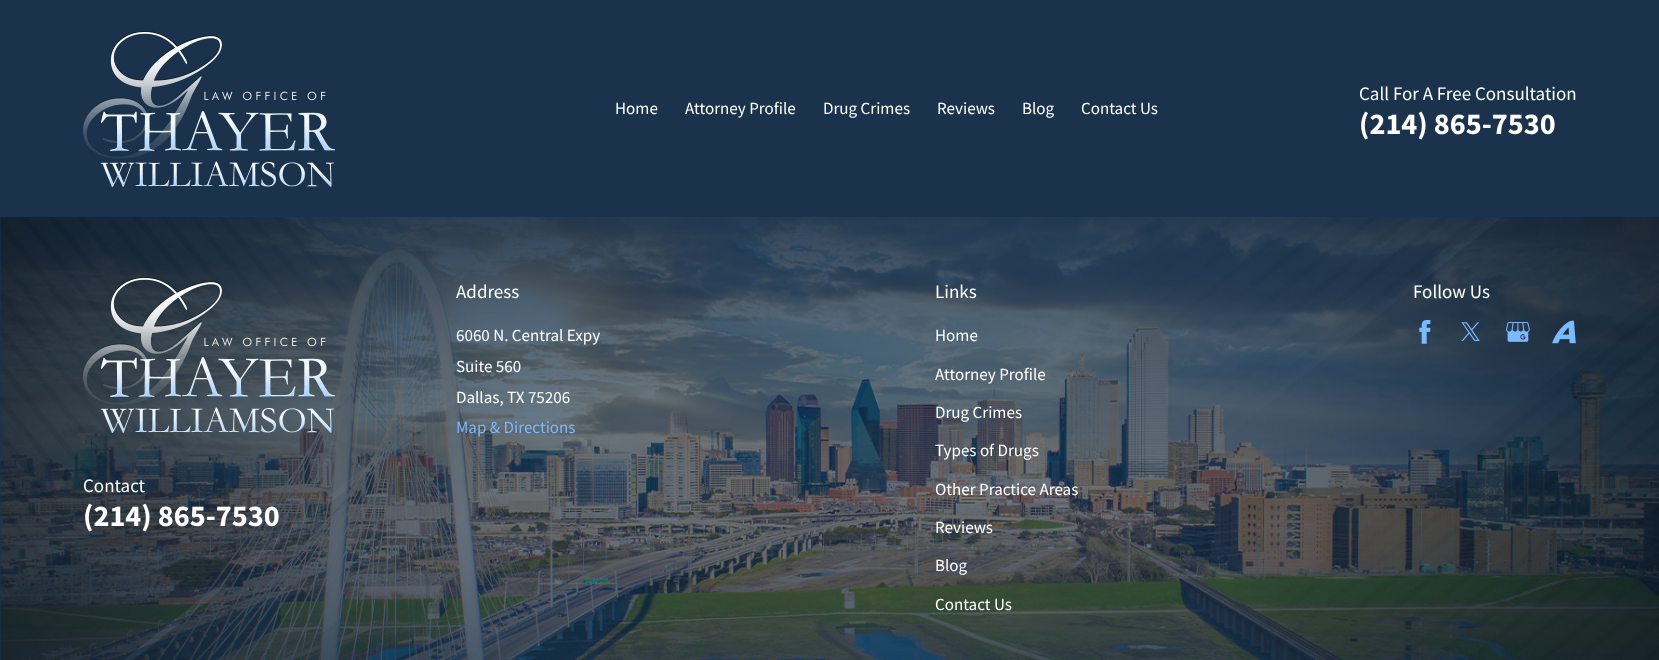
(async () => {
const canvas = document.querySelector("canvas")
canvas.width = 1659
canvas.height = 660
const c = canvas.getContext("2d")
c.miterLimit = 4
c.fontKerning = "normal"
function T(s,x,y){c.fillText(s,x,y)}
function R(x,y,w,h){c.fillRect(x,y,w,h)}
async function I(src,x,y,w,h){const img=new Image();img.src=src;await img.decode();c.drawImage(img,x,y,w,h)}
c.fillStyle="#1a324b"
R(0,0,1659,660)
await I("1.png",83,31,252,156)
c.font="17px Source Sans Pro"
c.fillStyle="#fff"
T("Home",615,114)
T("Attorney Profile",685,114)
T("Drug Crimes",823,114)
T("Reviews",937,114)
T("Blog",1022,114)
T("Contact Us",1081,114)
c.font="19px Source Sans Pro"
T("Call For A Free Consultation",1359,100)
c.font="bold 30.25px Source Sans Pro"
T("(214) 865-7530",1359,134)
await I("2.png",0,217,1659,443)
await I("3.png",83,277,252,156)
c.font="19px Source Sans Pro"
T("Contact",83,492)
c.font="bold 30.25px Source Sans Pro"
T("(214) 865-7530",83,526)
c.font="19px Source Sans Pro"
T("Address",456,298)
c.font="17px Source Sans Pro"
T("6060 N. Central Expy",456,341)
T("Suite 560",456,372)
T("Dallas, TX 75206",456,403)
c.fillStyle="#7abaff"
T("Map & Directions",456,433)
c.font="19px Source Sans Pro"
c.fillStyle="#fff"
T("Links",935,298)
c.font="17px Source Sans Pro"
T("Home",935,341)
T("Attorney Profile",935,380)
T("Drug Crimes",935,418)
T("Types of Drugs",935,456)
T("Other Practice Areas",935,495)
T("Reviews",935,533)
T("Blog",935,571)
T("Contact Us",935,610)
c.font="19px Source Sans Pro"
T("Follow Us",1413,298)
await I("4.png",1419,320,12,24)
await I("5.png",1461,322,19,19)
await I("6.png",1506,322,24,20)
await I("7.png",1552,320,24,24)
})()
